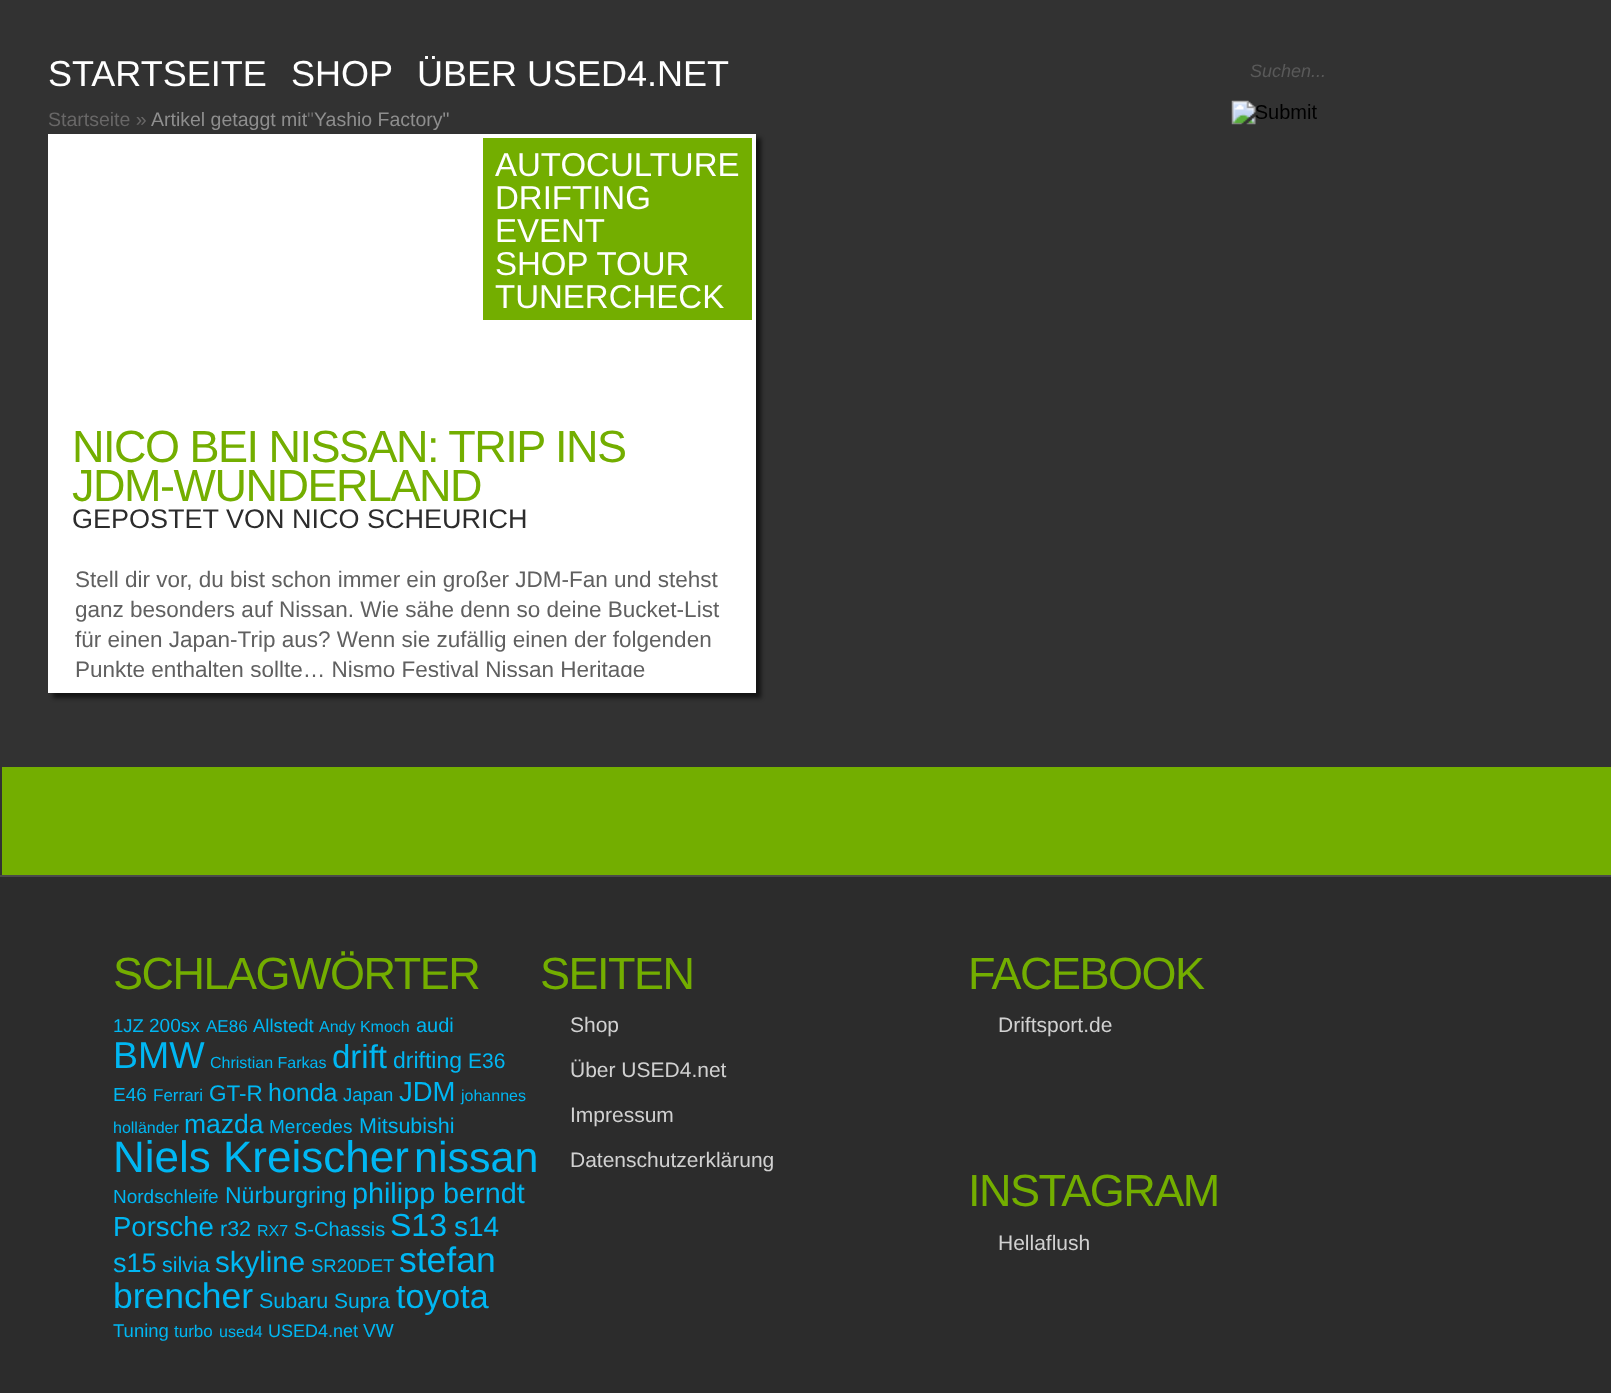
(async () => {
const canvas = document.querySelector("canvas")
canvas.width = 1611
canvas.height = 1393
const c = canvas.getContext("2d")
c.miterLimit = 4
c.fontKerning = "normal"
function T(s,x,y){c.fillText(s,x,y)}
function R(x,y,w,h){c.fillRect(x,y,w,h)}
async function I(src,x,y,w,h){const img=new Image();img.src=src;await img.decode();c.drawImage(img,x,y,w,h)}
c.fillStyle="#2c2c2c"
R(0,0,1611,1393)
c.fillStyle="#323232"
R(0,0,1611,875)
c.font="36px Liberation Sans"
c.fillStyle="#fff"
T("STARTSEITE",48,86)
T("SHOP",291,86)
T("ÜBER USED4.NET",417,86)
c.font="italic 18px Liberation Sans"
c.fillStyle="#595959"
T("Suchen...",1250,77)
await I("1.png",1231,100,86,25)
c.font="19.5px Liberation Sans"
c.fillStyle="#686767"
T("Startseite »",48,126)
c.fillStyle="#8e8e8e"
T("Artikel getaggt mit",151,126)
c.fillStyle="#686767"
T("\"",307,126)
c.fillStyle="#8e8e8e"
T("Yashio Factory\"",314,126)
c.fillStyle="#00000099"
c.filter="blur(2px)"
c.beginPath()
c.rect(53,138,708,560)
c.fill()
c.filter="none"
c.fillStyle="#fff"
R(48,134,708,559)
c.fillStyle="#73ae00"
R(483,138,269,182)
c.font="33px Liberation Sans"
c.fillStyle="#fff"
T("AUTOCULTURE",495,176)
T("DRIFTING",495,209)
T("EVENT",495,242)
T("SHOP TOUR",495,275)
T("TUNERCHECK",495,308)
c.letterSpacing="-1.5px"
c.font="45px Liberation Sans"
c.fillStyle="#73ae00"
T("NICO BEI NISSAN: TRIP INS",72,462)
T("JDM-WUNDERLAND",72,501)
c.letterSpacing="0px"
c.font="27px Liberation Sans"
c.fillStyle="#2c2c2c"
T("GEPOSTET VON NICO SCHEURICH",72,528)
c.font="22.5px Liberation Sans"
c.fillStyle="#606060"
T("Stell dir vor, du bist schon immer ein großer JDM-Fan und stehst",75,587)
T("ganz besonders auf Nissan. Wie sähe denn so deine Bucket-List",75,617)
T("für einen Japan-Trip aus? Wenn sie zufällig einen der folgenden",75,647)
c.save()
c.beginPath()
c.rect(50,549,705,128)
c.clip()
T("Punkte enthalten sollte… Nismo Festival Nissan Heritage",75,677)
c.restore()
c.fillStyle="#73ae00"
R(2,767,1609,108)
c.fillStyle="#4a4a4a"
R(0,875,1611,2)
c.letterSpacing="-1.5px"
c.font="45px Liberation Sans"
c.fillStyle="#73ae00"
T("SCHLAGWÖRTER",113,989)
c.letterSpacing="0px"
c.font="18.5px Liberation Sans"
c.fillStyle="#00b7f3"
T("1JZ",113,1032)
c.font="19px Liberation Sans"
T("200sx",149,1032)
c.font="17px Liberation Sans"
T("AE86",206,1032)
c.font="18.5px Liberation Sans"
T("Allstedt",253,1032)
c.font="16px Liberation Sans"
T("Andy Kmoch",319,1032)
c.font="20px Liberation Sans"
T("audi",416,1032)
c.font="37.5px Liberation Sans"
T("BMW",113,1068)
c.font="16px Liberation Sans"
T("Christian Farkas",210,1068)
c.font="33px Liberation Sans"
T("drift",332,1068)
c.font="23px Liberation Sans"
T("drifting",393,1068)
c.font="21px Liberation Sans"
T("E36",468,1068)
c.font="19px Liberation Sans"
T("E46",113,1101)
c.font="17px Liberation Sans"
T("Ferrari",153,1101)
c.font="22.5px Liberation Sans"
T("GT-R",209,1101)
c.font="25px Liberation Sans"
T("honda",268,1101)
c.font="18.5px Liberation Sans"
T("Japan",343,1101)
c.font="27.5px Liberation Sans"
T("JDM",399,1101)
c.font="16px Liberation Sans"
T("johannes",461,1101)
T("holländer",113,1133)
c.font="26.5px Liberation Sans"
T("mazda",184,1133)
c.font="19px Liberation Sans"
T("Mercedes",269,1133)
c.font="21.5px Liberation Sans"
T("Mitsubishi",359,1133)
c.font="44px Liberation Sans"
T("Niels Kreischer",113,1172)
c.font="43px Liberation Sans"
T("nissan",414,1172)
c.font="19px Liberation Sans"
T("Nordschleife",113,1203)
c.font="23px Liberation Sans"
T("Nürburgring",225,1203)
c.font="28.75px Liberation Sans"
T("philipp berndt",352,1203)
c.font="27.5px Liberation Sans"
T("Porsche",113,1236)
c.font="21.5px Liberation Sans"
T("r32",220,1236)
c.font="16px Liberation Sans"
T("RX7",257,1236)
c.font="20px Liberation Sans"
T("S-Chassis",294,1236)
c.font="32px Liberation Sans"
T("S13",390,1236)
c.font="28px Liberation Sans"
T("s14",454,1236)
c.font="27px Liberation Sans"
T("s15",113,1272)
c.font="21.5px Liberation Sans"
T("silvia",162,1272)
c.font="29.5px Liberation Sans"
T("skyline",215,1272)
c.font="18.5px Liberation Sans"
T("SR20DET",311,1272)
c.font="35.5px Liberation Sans"
T("stefan",399,1272)
T("brencher",113,1308)
c.font="21.5px Liberation Sans"
T("Subaru",259,1308)
c.font="21px Liberation Sans"
T("Supra",334,1308)
c.font="34px Liberation Sans"
T("toyota",396,1308)
c.font="18.5px Liberation Sans"
T("Tuning",113,1337)
c.font="17px Liberation Sans"
T("turbo",174,1337)
c.font="16px Liberation Sans"
T("used4",219,1337)
c.font="18px Liberation Sans"
T("USED4.net",268,1337)
c.font="19px Liberation Sans"
T("VW",363,1337)
c.letterSpacing="-1.5px"
c.font="45px Liberation Sans"
c.fillStyle="#73ae00"
T("SEITEN",540,989)
c.letterSpacing="0px"
c.font="21px Liberation Sans"
c.fillStyle="#d1d1d1"
T("Shop",570,1032)
T("Über USED4.net",570,1077)
T("Impressum",570,1122)
T("Datenschutzerklärung",570,1167)
c.letterSpacing="-1.5px"
c.font="45px Liberation Sans"
c.fillStyle="#73ae00"
T("FACEBOOK",968,989)
c.letterSpacing="0px"
c.font="21px Liberation Sans"
c.fillStyle="#d1d1d1"
T("Driftsport.de",998,1032)
c.letterSpacing="-1.5px"
c.font="45px Liberation Sans"
c.fillStyle="#73ae00"
T("INSTAGRAM",968,1206)
c.letterSpacing="0px"
c.font="21px Liberation Sans"
c.fillStyle="#d1d1d1"
T("Hellaflush",998,1250)
})()
